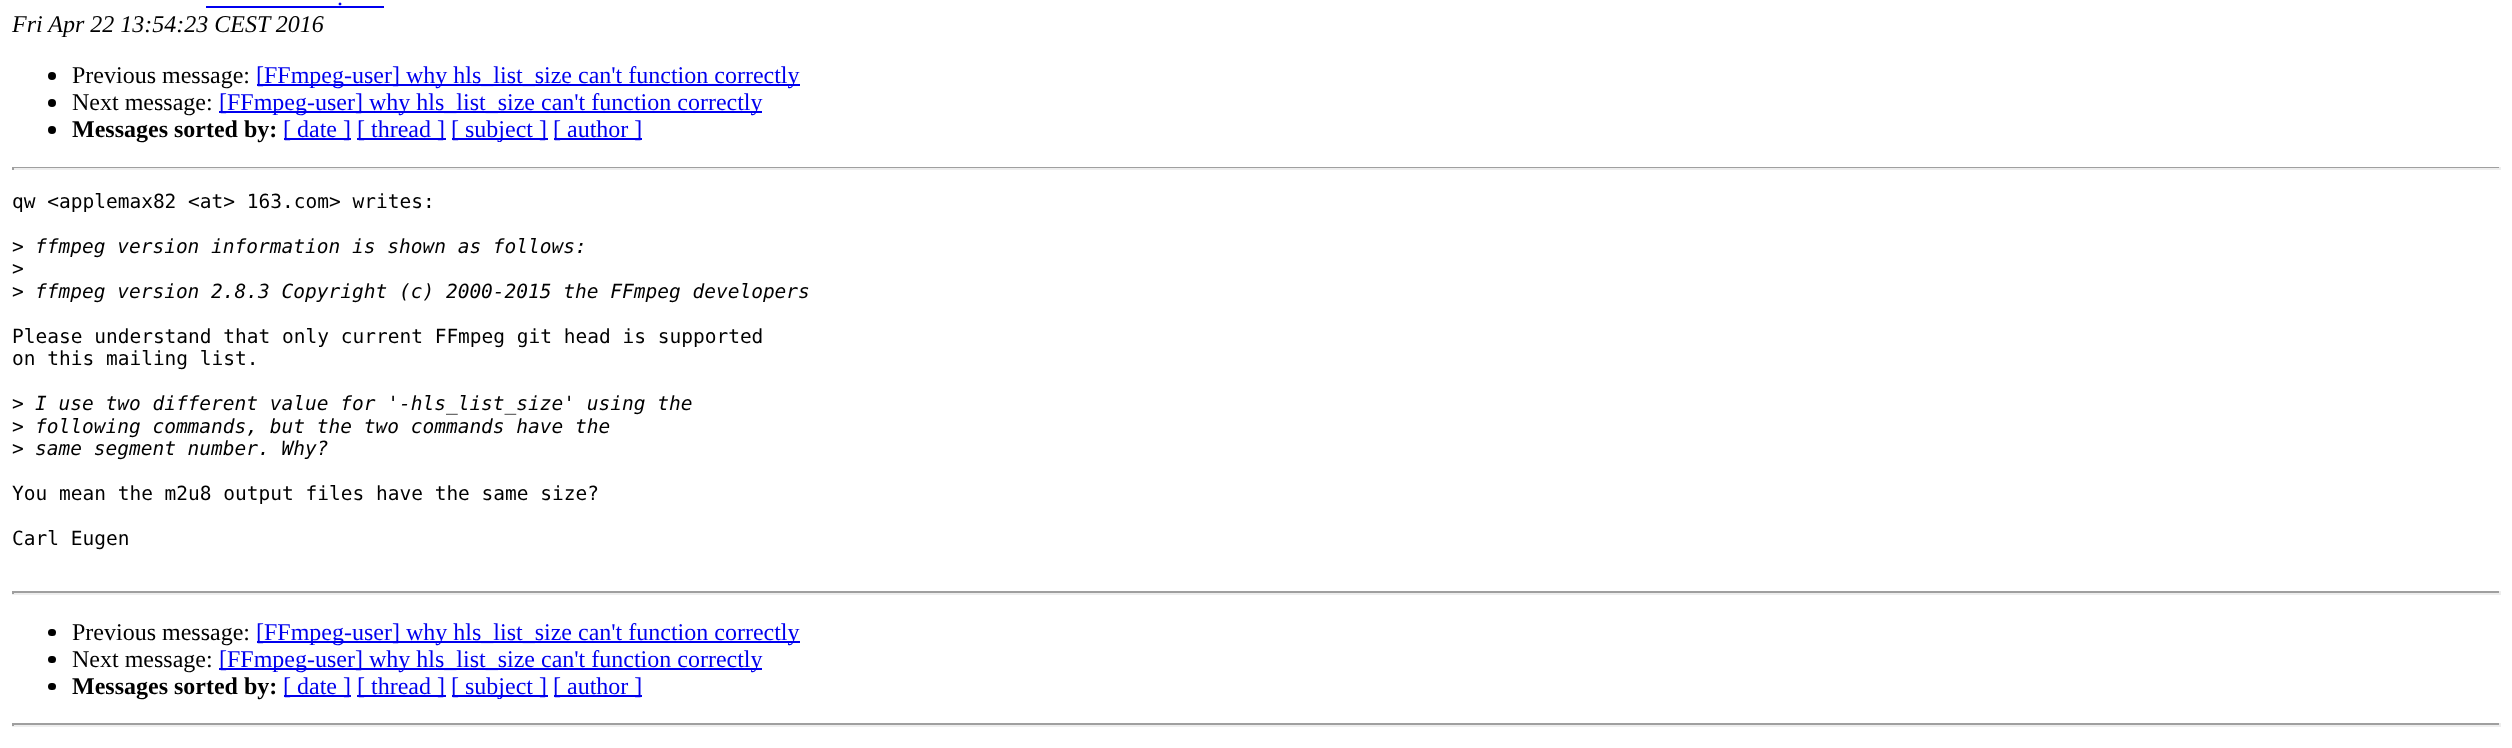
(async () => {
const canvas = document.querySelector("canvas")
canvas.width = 2512
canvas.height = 748
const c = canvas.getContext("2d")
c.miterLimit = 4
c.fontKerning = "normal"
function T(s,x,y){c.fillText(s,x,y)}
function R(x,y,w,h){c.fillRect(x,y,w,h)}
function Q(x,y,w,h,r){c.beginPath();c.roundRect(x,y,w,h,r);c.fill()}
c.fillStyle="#fff"
R(0,0,2512,748)
c.font="24px Liberation Serif"
c.fillStyle="#00e"
T(".",337,5)
R(206,6,178,2)
c.font="italic 24px Liberation Serif"
c.fillStyle="#000"
T("Fri Apr 22 13:54:23 CEST 2016",12,32)
c.beginPath()
c.arc(52,76,4,0,7)
c.fill()
c.font="24px Liberation Serif"
T("Previous message:",72,83)
c.fillStyle="#00e"
R(257,84,543,2)
T("[FFmpeg-user] why hls_list_size can't function correctly",256,83)
c.fillStyle="#000"
c.beginPath()
c.arc(52,103,4,0,7)
c.fill()
T("Next message:",72,110)
c.fillStyle="#00e"
R(219,111,543,2)
T("[FFmpeg-user] why hls_list_size can't function correctly",219,110)
c.fillStyle="#000"
c.beginPath()
c.arc(52,130,4,0,7)
c.fill()
c.font="bold 24px Liberation Serif"
T("Messages sorted by:",72,137)
c.fillStyle="#00e"
R(284,138,67,2)
c.font="24px Liberation Serif"
T("[ date ]",283,137)
R(357,138,89,2)
T("[ thread ]",357,137)
R(452,138,96,2)
T("[ subject ]",451,137)
R(554,138,88,2)
T("[ author ]",553,137)
c.fillStyle="#9f9f9f"
R(12,167,2489,1)
c.fillStyle="#eee"
R(2499,167,2,3)
R(12,168,2489,2)
c.fillStyle="#9f9f9f"
R(12,167,2,3)
c.font="19.5px DejaVu Sans Mono"
c.fillStyle="#000"
T("qw <applemax82 <at> 163.com> writes:",12,208)
T(">",12,253)
c.font="italic 19.5px DejaVu Sans Mono"
T("ffmpeg version information is shown as follows:",35,253)
c.font="19.5px DejaVu Sans Mono"
T(">",12,275)
T(">",12,298)
c.font="italic 19.5px DejaVu Sans Mono"
T("ffmpeg version 2.8.3 Copyright (c) 2000-2015 the FFmpeg developers",35,298)
c.font="19.5px DejaVu Sans Mono"
T("Please understand that only current FFmpeg git head is supported",12,343)
T("on this mailing list.",12,365)
T(">",12,410)
c.font="italic 19.5px DejaVu Sans Mono"
T("I use two different value for '-hls_list_size' using the",35,410)
c.font="19.5px DejaVu Sans Mono"
T(">",12,433)
c.font="italic 19.5px DejaVu Sans Mono"
T("following commands, but the two commands have the",35,433)
c.font="19.5px DejaVu Sans Mono"
T(">",12,455)
c.font="italic 19.5px DejaVu Sans Mono"
T("same segment number. Why?",35,455)
c.font="19.5px DejaVu Sans Mono"
T("You mean the m2u8 output files have the same size?",12,500)
T("Carl Eugen",12,545)
c.fillStyle="#9f9f9f"
R(12,591,2489,2)
c.fillStyle="#eee"
R(2499,591,2,3)
R(12,593,2489,2)
c.fillStyle="#9f9f9f"
R(12,591,2,3)
c.fillStyle="#000"
Q(48,629,8,7,3.5)
c.font="24px Liberation Serif"
T("Previous message:",72,640)
c.fillStyle="#00e"
R(257,641,543,2)
T("[FFmpeg-user] why hls_list_size can't function correctly",256,640)
c.fillStyle="#000"
Q(48,656,8,7,3.5)
T("Next message:",72,667)
c.fillStyle="#00e"
R(219,668,543,2)
T("[FFmpeg-user] why hls_list_size can't function correctly",219,667)
c.fillStyle="#000"
Q(48,683,8,7,3.5)
c.font="bold 24px Liberation Serif"
T("Messages sorted by:",72,694)
c.fillStyle="#00e"
R(284,695,67,2)
c.font="24px Liberation Serif"
T("[ date ]",283,694)
R(357,695,89,2)
T("[ thread ]",357,694)
R(452,695,96,2)
T("[ subject ]",451,694)
R(554,695,88,2)
T("[ author ]",553,694)
c.fillStyle="#9f9f9f"
R(12,723,2489,2)
c.fillStyle="#eee"
R(2499,723,2,3)
R(12,725,2489,2)
c.fillStyle="#9f9f9f"
R(12,723,2,3)
})()
